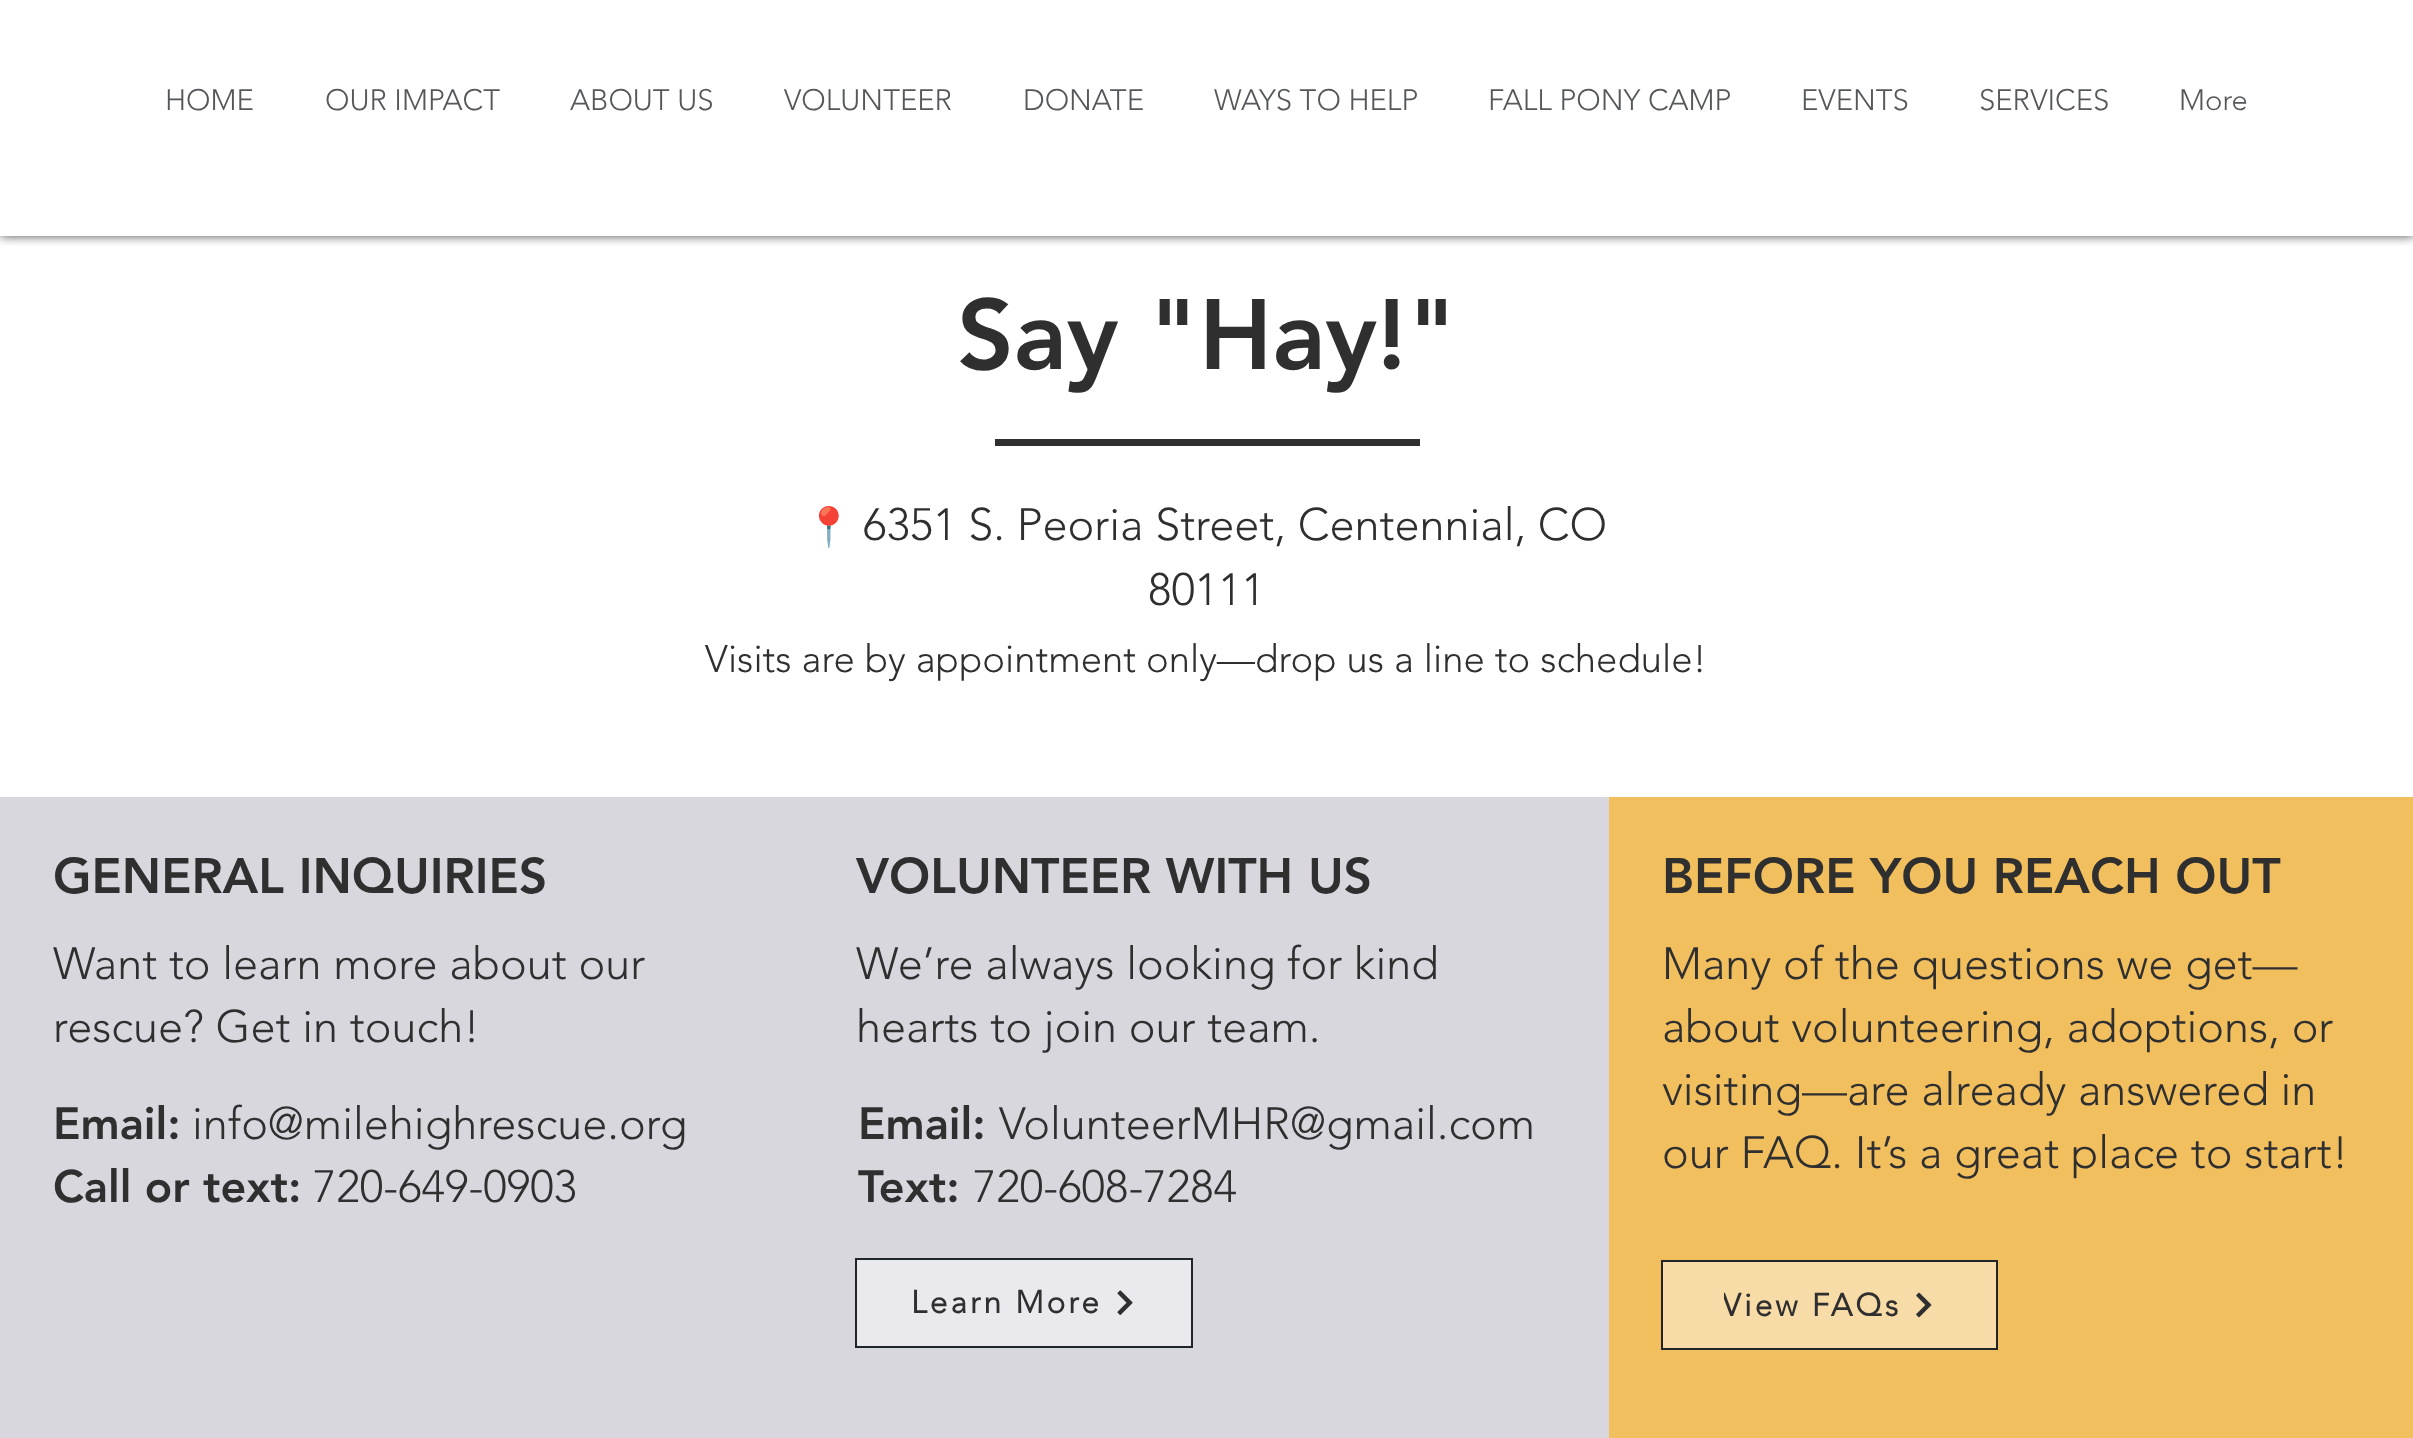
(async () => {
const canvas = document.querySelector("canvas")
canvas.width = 2413
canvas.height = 1438
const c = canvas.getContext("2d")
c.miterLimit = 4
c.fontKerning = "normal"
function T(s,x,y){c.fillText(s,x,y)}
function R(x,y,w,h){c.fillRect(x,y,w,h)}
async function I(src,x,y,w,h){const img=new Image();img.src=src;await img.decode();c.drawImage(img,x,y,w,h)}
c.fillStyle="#fff"
R(0,0,2413,1438)
c.save()
c.beginPath()
c.rect(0,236,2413,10)
c.clip()
c.fillStyle="#000000b3"
c.filter="blur(5.5px)"
c.beginPath()
c.rect(0,0,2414,236)
c.fill()
c.filter="none"
c.restore()
c.font="300 29.25px 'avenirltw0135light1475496'"
c.fillStyle="#55575b"
T("HOME",165,110)
T("OUR IMPACT",325,110)
T("ABOUT US",570,110)
T("VOLUNTEER",784,110)
T("DONATE",1023,110)
T("WAYS TO HELP",1214,110)
T("FALL PONY CAMP",1488,110)
T("EVENTS",1801,110)
T("SERVICES",1979,110)
T("More",2179,110)
c.font="900 99px 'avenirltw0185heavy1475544'"
c.fillStyle="#2f2f30"
T("Say \"Hay!\"",957,369)
R(995,439,425,7)
c.font="38.25px Noto Color Emoji"
T("📍",805,540)
c.font="300 45px 'avenirltw0135light1475496'"
T("6351 S. Peoria Street, Centennial, CO",863,540)
T("80111",1148,605)
c.font="300 38.25px 'avenirltw0135light1475496'"
T("Visits are by appointment only—drop us a line to schedule!",705,672)
c.fillStyle="#d9d7de"
R(0,797,1609,641)
c.font="900 49.5px 'avenirltw0185heavy1475544'"
c.fillStyle="#2f2f30"
T("GENERAL INQUIRIES",53,893)
c.font="300 45px 'avenirltw0135light1475496'"
T("Want to learn more about our",53,979)
T("rescue? Get in touch!",53,1042)
c.font="900 45px 'avenirltw0185heavy1475544'"
T("Email:",53,1139)
c.font="300 45px 'avenirltw0135light1475496'"
T("info@milehighrescue.org",192,1139)
c.font="900 45px 'avenirltw0185heavy1475544'"
T("Call or text:",53,1202)
c.font="300 45px 'avenirltw0135light1475496'"
T("720-649-0903",313,1202)
c.font="900 49.5px 'avenirltw0185heavy1475544'"
T("VOLUNTEER WITH US",856,893)
c.font="300 45px 'avenirltw0135light1475496'"
T("We’re always looking for kind",856,979)
T("hearts to join our team.",856,1042)
c.font="900 45px 'avenirltw0185heavy1475544'"
T("Email:",858,1139)
c.font="300 45px 'avenirltw0135light1475496'"
T("VolunteerMHR@gmail.com",999,1139)
c.font="900 45px 'avenirltw0185heavy1475544'"
T("Text:",858,1202)
c.font="300 45px 'avenirltw0135light1475496'"
T("720-608-7284",973,1202)
c.fillStyle="#eae9ed"
c.beginPath()
c.rect(856,1259,336,88)
c.fill()
c.strokeStyle="#1f2528"
c.lineWidth=2
c.stroke()
c.letterSpacing="3.1px"
c.font="bold 31.5px 'avenirltw0135light1475496'"
c.fillStyle="#2f2f30"
T("Learn More",911,1313)
await I("1.png",1117,1290,16,25)
c.fillStyle="#f2bf5e"
R(1609,797,804,641)
c.letterSpacing="0px"
c.font="900 49.5px 'avenirltw0185heavy1475544'"
c.fillStyle="#2f2f30"
T("BEFORE YOU REACH OUT",1662,893)
c.font="300 45px 'avenirltw0135light1475496'"
T("Many of the questions we get—",1662,979)
T("about volunteering, adoptions, or",1662,1042)
T("visiting—are already answered in",1662,1105)
T("our FAQ. It’s a great place to start!",1662,1168)
c.fillStyle="#f8dca8"
c.beginPath()
c.rect(1662,1261,335,88)
c.fill()
c.stroke()
c.save()
c.beginPath()
c.rect(1724,1287,177,38)
c.clip()
c.letterSpacing="3.1px"
c.font="bold 31.5px 'avenirltw0135light1475496'"
c.fillStyle="#2f2f30"
T("View FAQs",1722,1316)
c.restore()
await I("2.png",1916,1292,16,26)
})()
